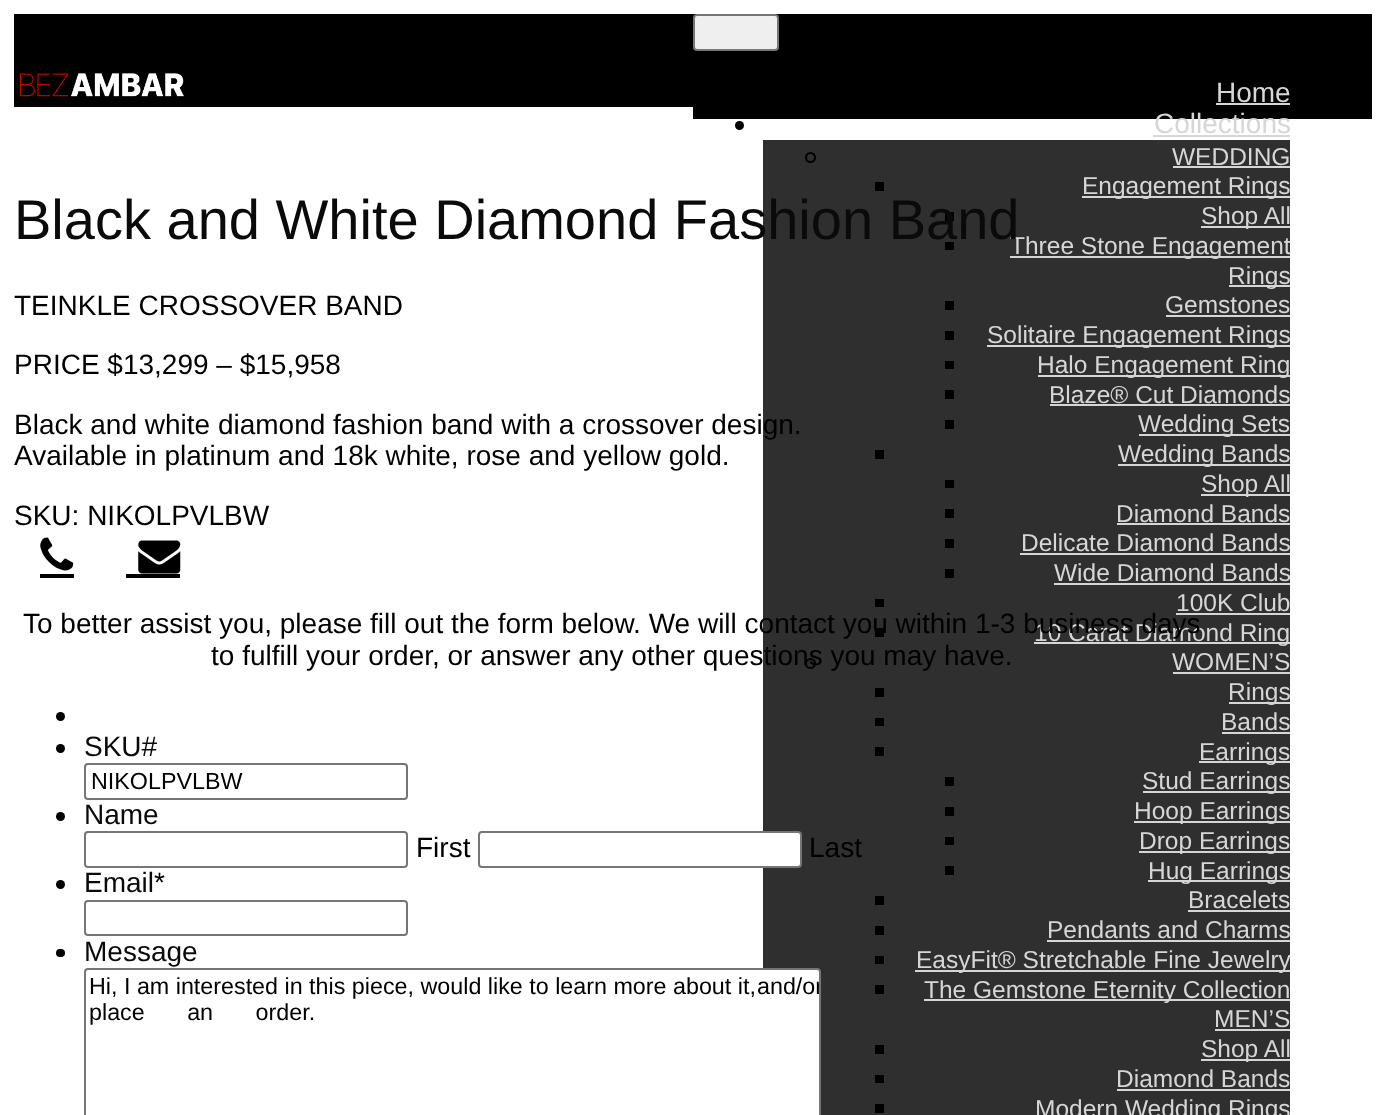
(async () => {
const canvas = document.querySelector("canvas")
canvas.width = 1386
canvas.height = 1115
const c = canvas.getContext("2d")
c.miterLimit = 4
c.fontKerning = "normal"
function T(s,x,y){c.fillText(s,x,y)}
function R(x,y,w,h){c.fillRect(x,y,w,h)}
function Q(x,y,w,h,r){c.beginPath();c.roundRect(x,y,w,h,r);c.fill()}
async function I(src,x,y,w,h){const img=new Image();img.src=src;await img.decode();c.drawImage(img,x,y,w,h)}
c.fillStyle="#fff"
R(0,0,1386,1115)
c.fillStyle="#000"
R(14,14,679,93)
await I("1.png",19,73,165,24)
R(693,14,679,105)
c.fillStyle="#efefef"
c.beginPath()
c.roundRect(694,15,84,35,3)
c.fill()
c.strokeStyle="#767676"
c.lineWidth=2
c.stroke()
c.font="28px Liberation Sans"
c.fillStyle="#d8d5d5"
T("Home",1216,102)
R(1216,103,74,2)
c.fillStyle="#000"
c.beginPath()
c.arc(739.5,125.5,4.5,0,7)
c.fill()
c.fillStyle="#d8d5d5"
T("Collections",1154,133)
R(1153,135,137,2)
c.fillStyle="#2f2f2f"
R(763,140,527,975)
c.beginPath()
c.arc(810.5,157.5,4.5,0,7)
c.strokeStyle="#000"
c.stroke()
c.font="24.5px Liberation Sans"
c.fillStyle="#d8d5d5"
T("WEDDING",1172,165)
R(1173,166,117,2)
c.fillStyle="#000"
R(875,182,9,9)
c.fillStyle="#d8d5d5"
R(1082,196,208,2)
T("Engagement Rings",1082,194)
c.fillStyle="#000"
R(945,212,9,9)
c.fillStyle="#d8d5d5"
R(1201,226,89,2)
T("Shop All",1201,224)
c.fillStyle="#000"
R(945,242,9,8)
c.fillStyle="#d8d5d5"
R(1010,256,280,2)
T("Three Stone Engagement",1010,254)
R(1229,285,61,2)
T("Rings",1228,284)
c.fillStyle="#000"
R(945,301,9,9)
c.fillStyle="#d8d5d5"
T("Gemstones",1165,313)
R(1166,315,124,2)
c.fillStyle="#000"
R(945,331,9,9)
c.fillStyle="#d8d5d5"
R(987,345,303,2)
T("Solitaire Engagement Rings",987,343)
c.fillStyle="#000"
R(945,361,9,8)
c.fillStyle="#d8d5d5"
R(1038,375,252,2)
T("Halo Engagement Ring",1037,373)
c.fillStyle="#000"
R(945,390,9,9)
c.fillStyle="#d8d5d5"
T("Blaze® Cut Diamonds",1049,403)
R(1050,404,240,2)
c.fillStyle="#000"
R(945,420,9,9)
c.fillStyle="#d8d5d5"
R(1139,434,151,2)
T("Wedding Sets",1138,432)
c.fillStyle="#000"
R(875,450,9,9)
c.fillStyle="#d8d5d5"
R(1118,464,172,2)
T("Wedding Bands",1118,462)
c.fillStyle="#000"
R(945,480,9,8)
c.fillStyle="#d8d5d5"
R(1201,494,89,2)
T("Shop All",1201,492)
c.fillStyle="#000"
R(945,509,9,9)
c.fillStyle="#d8d5d5"
T("Diamond Bands",1116,522)
R(1117,523,173,2)
c.fillStyle="#000"
R(945,539,9,9)
c.fillStyle="#d8d5d5"
T("Delicate Diamond Bands",1021,551)
R(1020,553,270,2)
c.fillStyle="#000"
R(945,569,9,9)
c.fillStyle="#d8d5d5"
T("Wide Diamond Bands",1054,581)
R(1054,583,236,2)
c.fillStyle="#000"
R(875,599,9,8)
c.fillStyle="#d8d5d5"
T("100K Club",1176,611)
R(1176,613,114,2)
c.fillStyle="#000"
R(875,628,9,9)
c.fillStyle="#d8d5d5"
R(1034,642,256,2)
T("10 Carat Diamond Ring",1034,641)
c.beginPath()
c.arc(810.5,663.5,4.5,0,7)
c.stroke()
T("WOMEN’S",1172,670)
R(1173,672,117,2)
c.fillStyle="#000"
R(875,688,9,9)
c.fillStyle="#d8d5d5"
R(1229,702,61,2)
T("Rings",1228,700)
c.fillStyle="#000"
R(875,718,9,8)
c.fillStyle="#d8d5d5"
T("Bands",1221,730)
R(1222,732,68,2)
c.fillStyle="#000"
R(875,747,9,9)
c.fillStyle="#d8d5d5"
R(1199,761,91,2)
T("Earrings",1199,760)
c.fillStyle="#000"
R(945,777,9,9)
c.fillStyle="#d8d5d5"
R(1143,791,147,2)
T("Stud Earrings",1142,789)
c.fillStyle="#000"
R(945,807,9,9)
c.fillStyle="#d8d5d5"
R(1134,821,156,2)
T("Hoop Earrings",1134,819)
c.fillStyle="#000"
R(945,837,9,8)
c.fillStyle="#d8d5d5"
R(1139,851,151,2)
T("Drop Earrings",1139,849)
c.fillStyle="#000"
R(945,866,9,9)
c.fillStyle="#d8d5d5"
R(1148,880,142,2)
T("Hug Earrings",1148,879)
c.fillStyle="#000"
R(875,896,9,9)
c.fillStyle="#d8d5d5"
T("Bracelets",1188,908)
R(1188,910,102,2)
c.fillStyle="#000"
R(875,926,9,9)
c.fillStyle="#d8d5d5"
T("Pendants and Charms",1047,938)
R(1047,940,243,2)
c.fillStyle="#000"
R(875,956,9,8)
c.fillStyle="#d8d5d5"
R(915,970,375,2)
T("EasyFit® Stretchable Fine Jewelry",916,968)
c.fillStyle="#000"
R(875,985,9,9)
c.fillStyle="#d8d5d5"
R(924,999,366,2)
T("The Gemstone Eternity Collection",924,998)
T("MEN’S",1214,1027)
R(1215,1029,75,2)
c.fillStyle="#000"
R(875,1045,9,9)
c.fillStyle="#d8d5d5"
R(1201,1059,89,2)
T("Shop All",1201,1057)
c.fillStyle="#000"
R(875,1075,9,8)
c.fillStyle="#d8d5d5"
T("Diamond Bands",1116,1087)
R(1117,1089,173,2)
c.fillStyle="#000"
R(875,1104,9,9)
c.fillStyle="#d8d5d5"
T("Modern Wedding Rings",1035,1117)
c.font="56px Liberation Sans"
c.fillStyle="#0a0a0a"
T("Black and White Diamond Fashion Band",14,239)
c.font="28px Liberation Sans"
c.fillStyle="#000"
T("TEINKLE CROSSOVER BAND",14,315)
T("PRICE $13,299 – $15,958",14,374)
T("Black and white diamond fashion band with a crossover design.",14,434)
T("Available in platinum and 18k white, rose and yellow gold.",14,465)
T("SKU: NIKOLPVLBW",14,525)
R(40,574,34,4)
await I("2.png",40,537,34,34)
await I("3.png",138,540,43,34)
R(126,574,54,4)
T("To better assist you, please fill out the form below. We will contact you within 1-3 business days",23,633)
T("to fulfill your order, or answer any other questions you may have.",211,665)
c.beginPath()
c.arc(60.5,716.5,4.5,0,7)
c.fill()
c.beginPath()
c.arc(60.5,748.5,4.5,0,7)
c.fill()
c.fillStyle="#0a0a0a"
T("SKU#",84,756)
c.beginPath()
c.roundRect(85,764,322,35,3)
c.strokeStyle="#767676"
c.stroke()
c.font="23.3px Liberation Sans"
c.fillStyle="#000"
T("NIKOLPVLBW",91,789)
c.beginPath()
c.arc(60.5,816.5,4.5,0,7)
c.fill()
c.font="28px Liberation Sans"
c.fillStyle="#0a0a0a"
T("Name",84,824)
c.beginPath()
c.roundRect(85,832,322,35,3)
c.stroke()
c.fillStyle="#000"
T("First",416,857)
c.fillStyle="#fff"
c.beginPath()
c.roundRect(479,832,322,35,3)
c.fill()
c.stroke()
c.fillStyle="#000"
T("Last",809,857)
c.fillStyle="#0a0a0a"
T("Email",84,892)
c.fillStyle="#000"
T("*",154,892)
c.beginPath()
c.arc(60.5,884.5,4.5,0,7)
c.fill()
c.beginPath()
c.roundRect(85,901,322,34,3)
c.stroke()
Q(56,949,9,8,4)
c.fillStyle="#0a0a0a"
T("Message",84,961)
c.fillStyle="#fff"
c.beginPath()
c.roundRect(85,969,735,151,3)
c.fill()
c.stroke()
c.font="23.3px Liberation Sans"
c.fillStyle="#000"
T("Hi, I am interested in this piece, would like to learn more about it,",89,994)
c.save()
c.beginPath()
c.rect(86,970,733,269)
c.clip()
T("and/or",757,994)
c.restore()
c.wordSpacing="36px"
T("place an order.",89,1020)
})()
